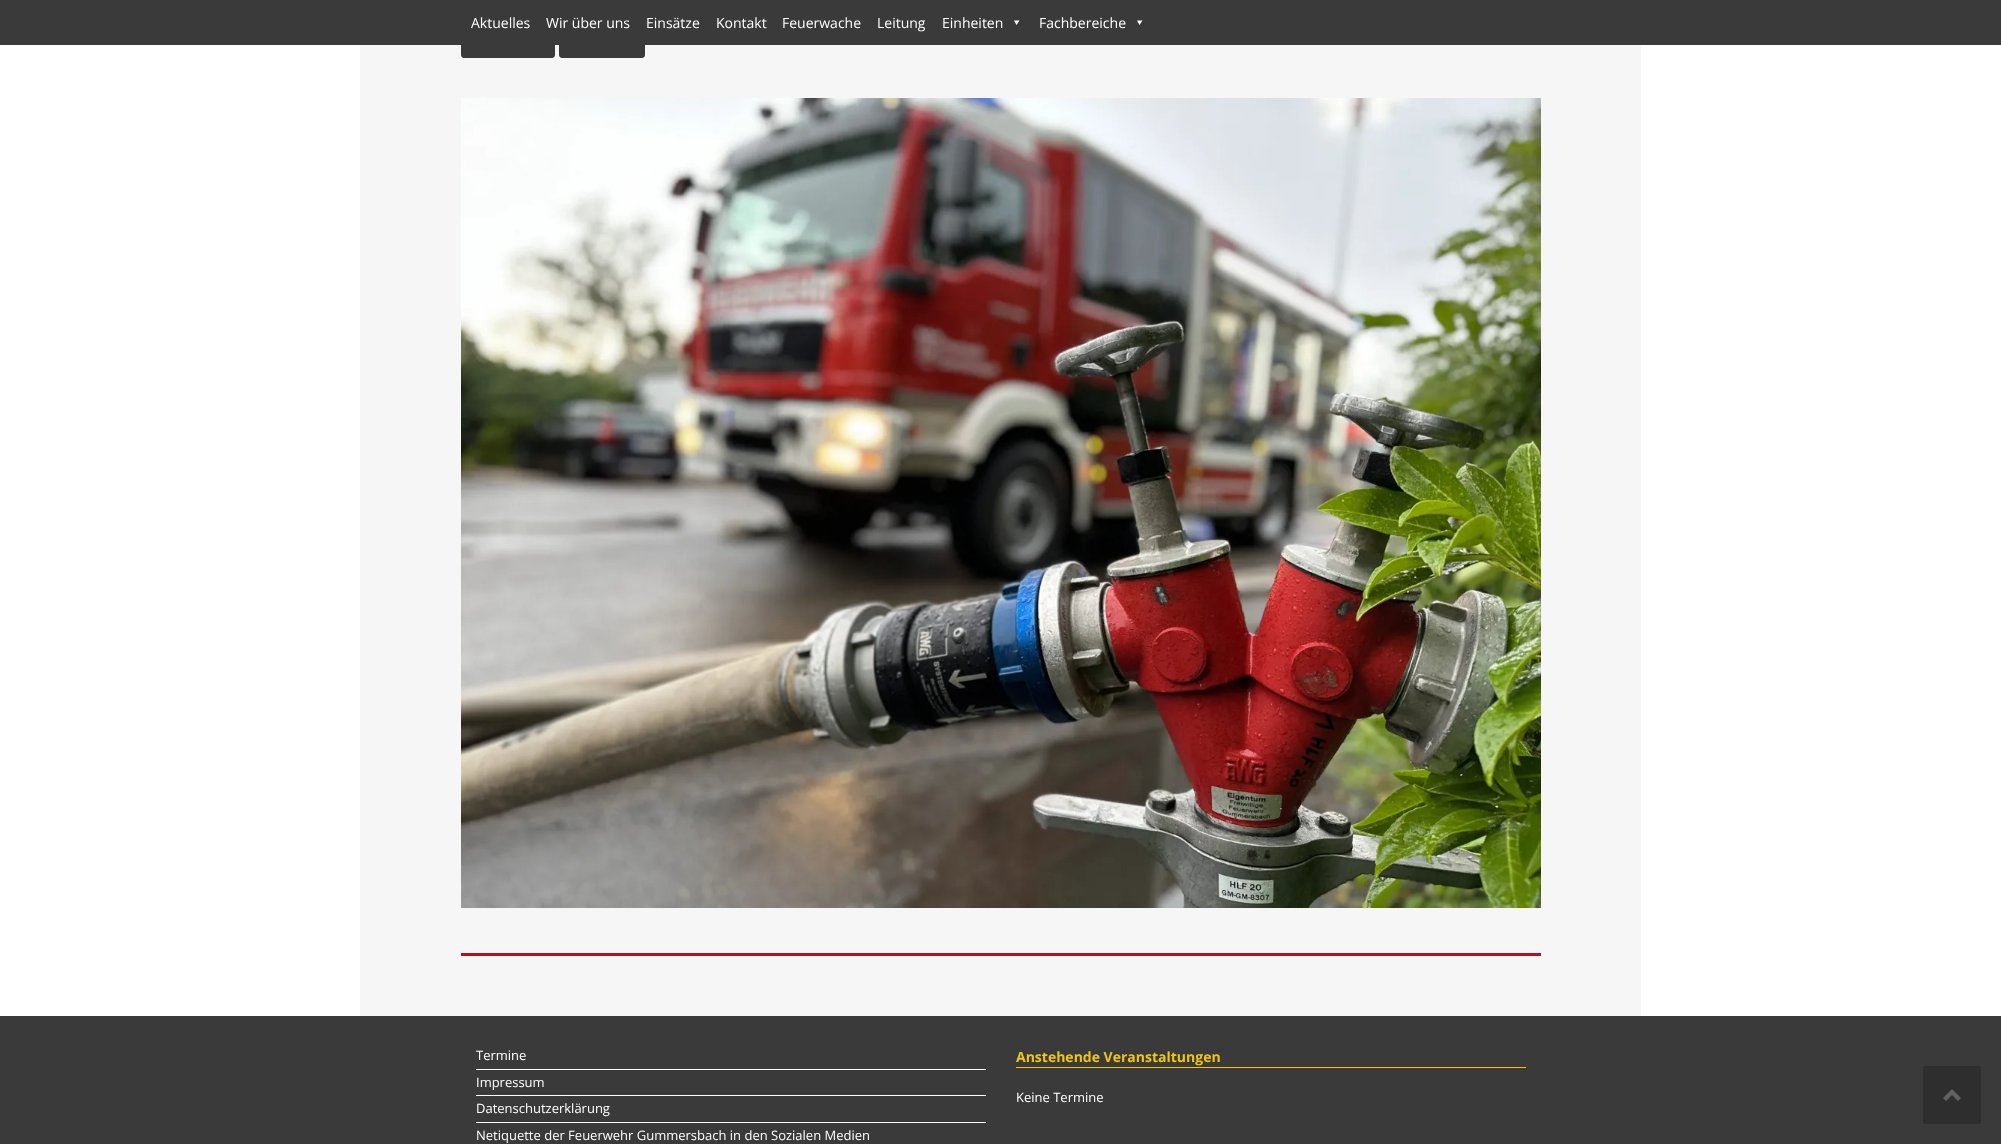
(async () => {
const canvas = document.querySelector("canvas")
canvas.width = 2001
canvas.height = 1144
const c = canvas.getContext("2d")
c.miterLimit = 4
c.fontKerning = "normal"
function T(s,x,y){c.fillText(s,x,y)}
function R(x,y,w,h){c.fillRect(x,y,w,h)}
function Q(x,y,w,h,r){c.beginPath();c.roundRect(x,y,w,h,r);c.fill()}
async function I(src,x,y,w,h){const img=new Image();img.src=src;await img.decode();c.drawImage(img,x,y,w,h)}
let path
c.fillStyle="#fff"
R(0,0,2001,1144)
c.fillStyle="#f6f6f6"
R(360,45,1281,971)
c.fillStyle="#3a3a3a"
c.beginPath()
c.roundRect(461.5,27.5,93,30,2.5)
c.fill()
c.strokeStyle="#3a3a3a"
c.stroke()
c.beginPath()
c.roundRect(559.5,27.5,85,30,2.5)
c.fill()
c.stroke()
R(0,0,2001,45)
c.font="14px Open Sans"
c.fillStyle="#fff"
T("Aktuelles",471,28)
T("Wir über uns",546,28)
T("Einsätze",646,28)
T("Kontakt",716,28)
T("Feuerwache",782,28)
T("Leitung",877,28)
T("Einheiten",942,28)
path = new Path2D("M1019.5 20.5l-3 4.5l-2.5-4.5z")
c.fill(path)
T("Fachbereiche",1039,28)
path = new Path2D("M1142.5 20.5l-3 4.5l-2.5-4.5z")
c.fill(path)
c.fillStyle="#b31218"
R(461,953,1080,3)
await I("1.png",461,98,1080,810)
c.fillStyle="#3a3a3a"
R(0,1016,2001,128)
c.fillStyle="#fff"
R(476,1069,510,1)
c.font="13px Open Sans"
T("Termine",476,1060)
R(476,1095,510,1)
T("Impressum",476,1087)
R(476,1122,510,1)
T("Datenschutzerklärung",476,1113)
T("Netiquette der Feuerwehr Gummersbach in den Sozialen Medien",476,1140)
c.fillStyle="#efc415"
R(1016,1067,510,1)
c.font="bold 14px Open Sans"
T("Anstehende Veranstaltungen",1016,1062)
c.font="13px Open Sans"
c.fillStyle="#fff"
T("Keine Termine",1016,1102)
c.fillStyle="#2e2e2e"
Q(1923,1066,58,58,3)
c.fillStyle="#616161"
path = new Path2D("M1961 1098l-9-9l-9 9l3 3l6-6l6 6z")
c.fill(path)
})()
